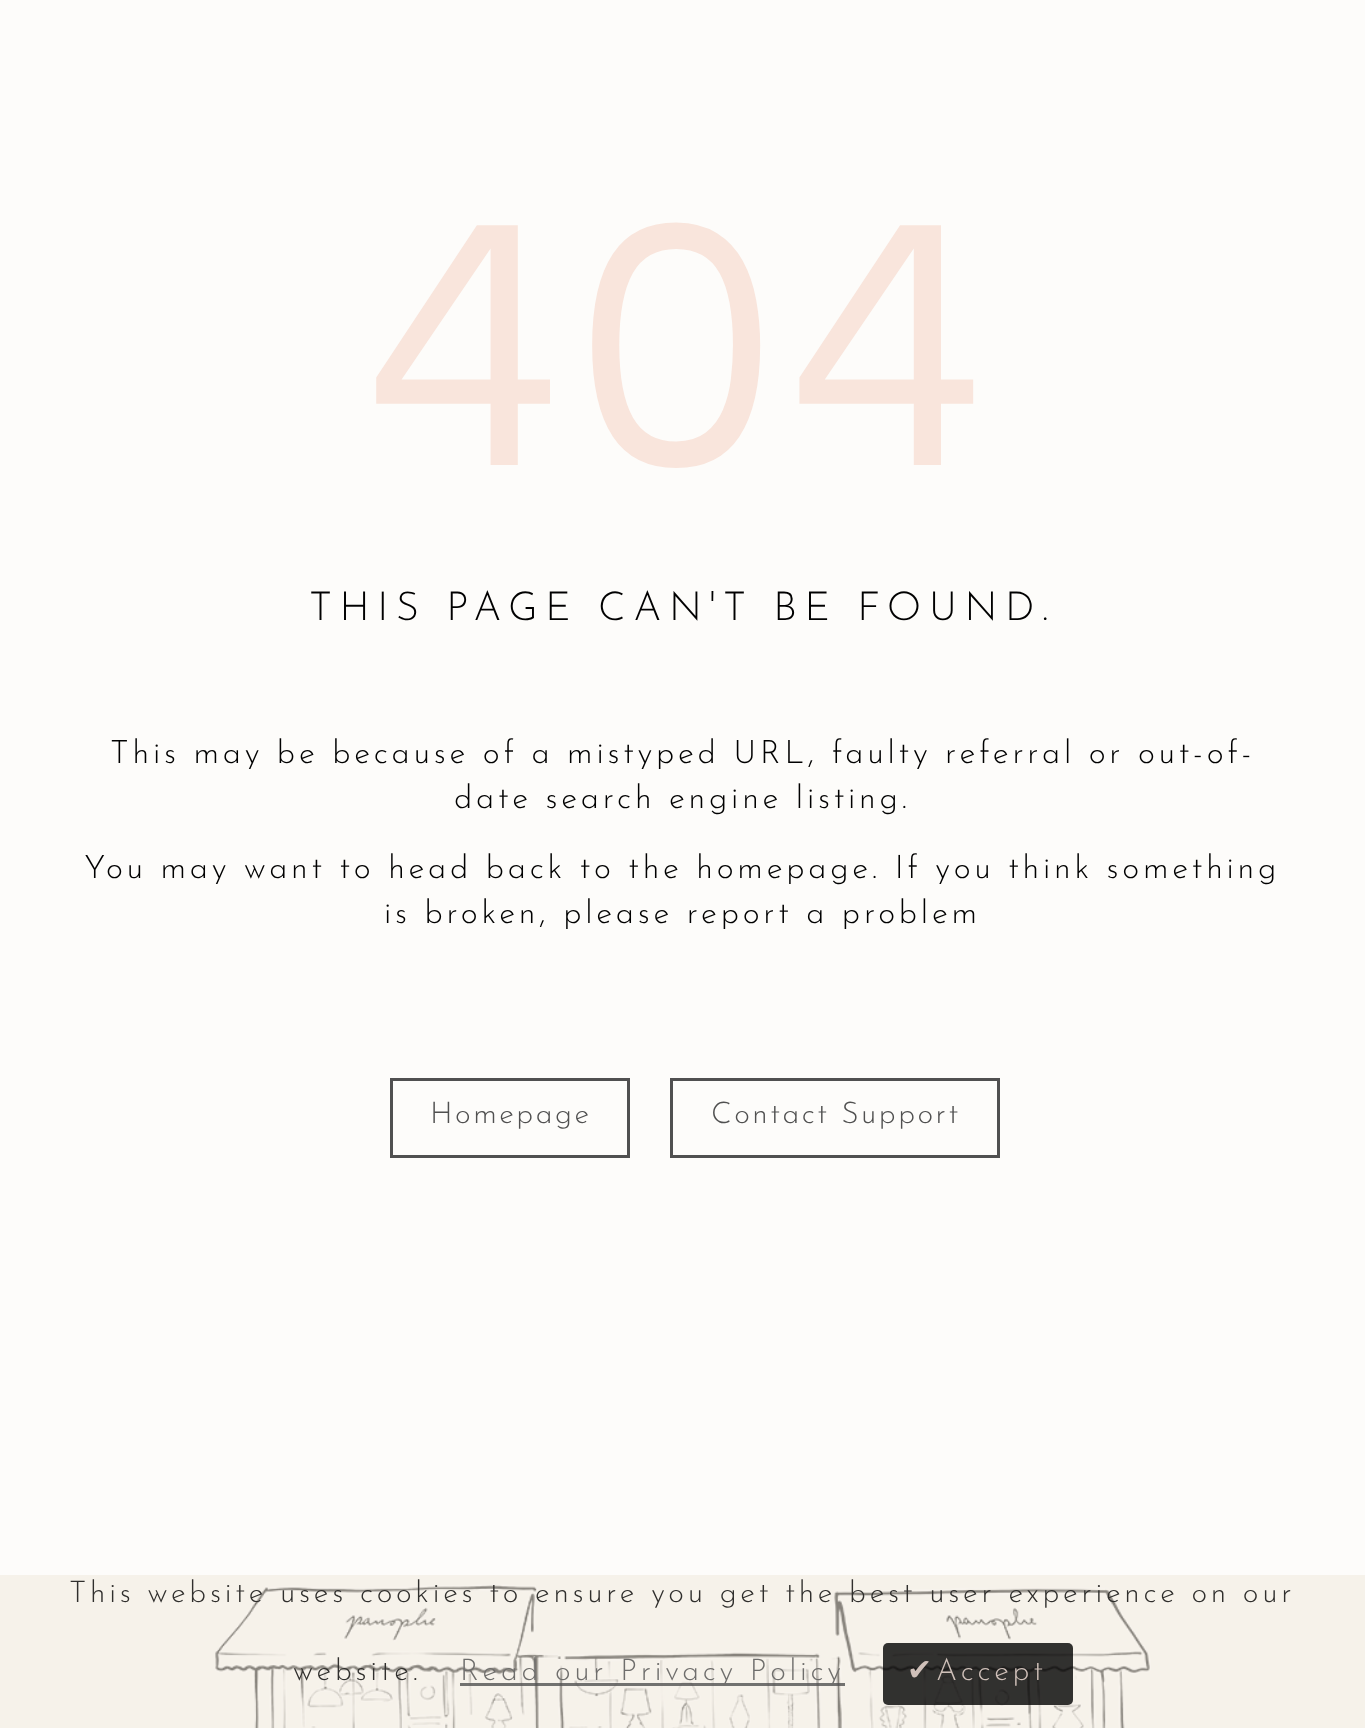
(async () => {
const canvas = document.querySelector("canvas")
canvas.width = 1365
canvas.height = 1728
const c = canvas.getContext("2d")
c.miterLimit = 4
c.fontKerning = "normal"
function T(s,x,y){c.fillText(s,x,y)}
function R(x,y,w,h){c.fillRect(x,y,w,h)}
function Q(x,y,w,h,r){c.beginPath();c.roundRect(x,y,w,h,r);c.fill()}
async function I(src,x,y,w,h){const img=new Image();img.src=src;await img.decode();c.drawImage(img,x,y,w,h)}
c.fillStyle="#fdfcfa"
R(0,0,1365,1728)
c.fillStyle="#f6f2ea"
R(0,1575,1365,153)
c.letterSpacing="12.5px"
c.font="362px Questrial"
c.fillStyle="#f9e5dc"
T("404",365,465)
c.letterSpacing="7.5px"
c.font="300 40px Josefin Sans"
c.fillStyle="#000"
T("THIS PAGE CAN'T BE FOUND.",309,620)
c.letterSpacing="3.75px"
c.font="300 32.5px Josefin Sans"
T("This may be because of a mistyped URL, faulty referral or out-of-",110,763)
T("date search engine listing.",454,808)
T("You may want to head back to the homepage. If you think something",84,878)
T("is broken, please report a problem",384,923)
c.strokeStyle="#505050"
c.lineWidth=3
c.strokeRect(391.5,1079.5,237,77)
c.letterSpacing="2.5px"
c.font="300 30px Josefin Sans"
c.fillStyle="#505050"
T("Homepage",430,1123)
c.strokeRect(671.5,1079.5,327,77)
T("Contact Support",711,1123)
await I("1.png",215,1584,936,144)
c.letterSpacing="3.75px"
c.fillStyle="#302f2d"
T("This website uses cookies to ensure you get the best user experience on our",69,1602)
T("website.",293,1680)
c.fillStyle="#505050cc"
R(460,1683,385,3)
c.fillStyle="#6f6e6c"
T("Read our Privacy Policy",460,1680)
c.fillStyle="#000000cc"
Q(883,1643,190,62,5)
c.font="30px DejaVu Sans"
c.fillStyle="#cfc0b9"
T("✔",907,1680)
c.font="300 30px Josefin Sans"
T("Accept",936,1680)
})()
